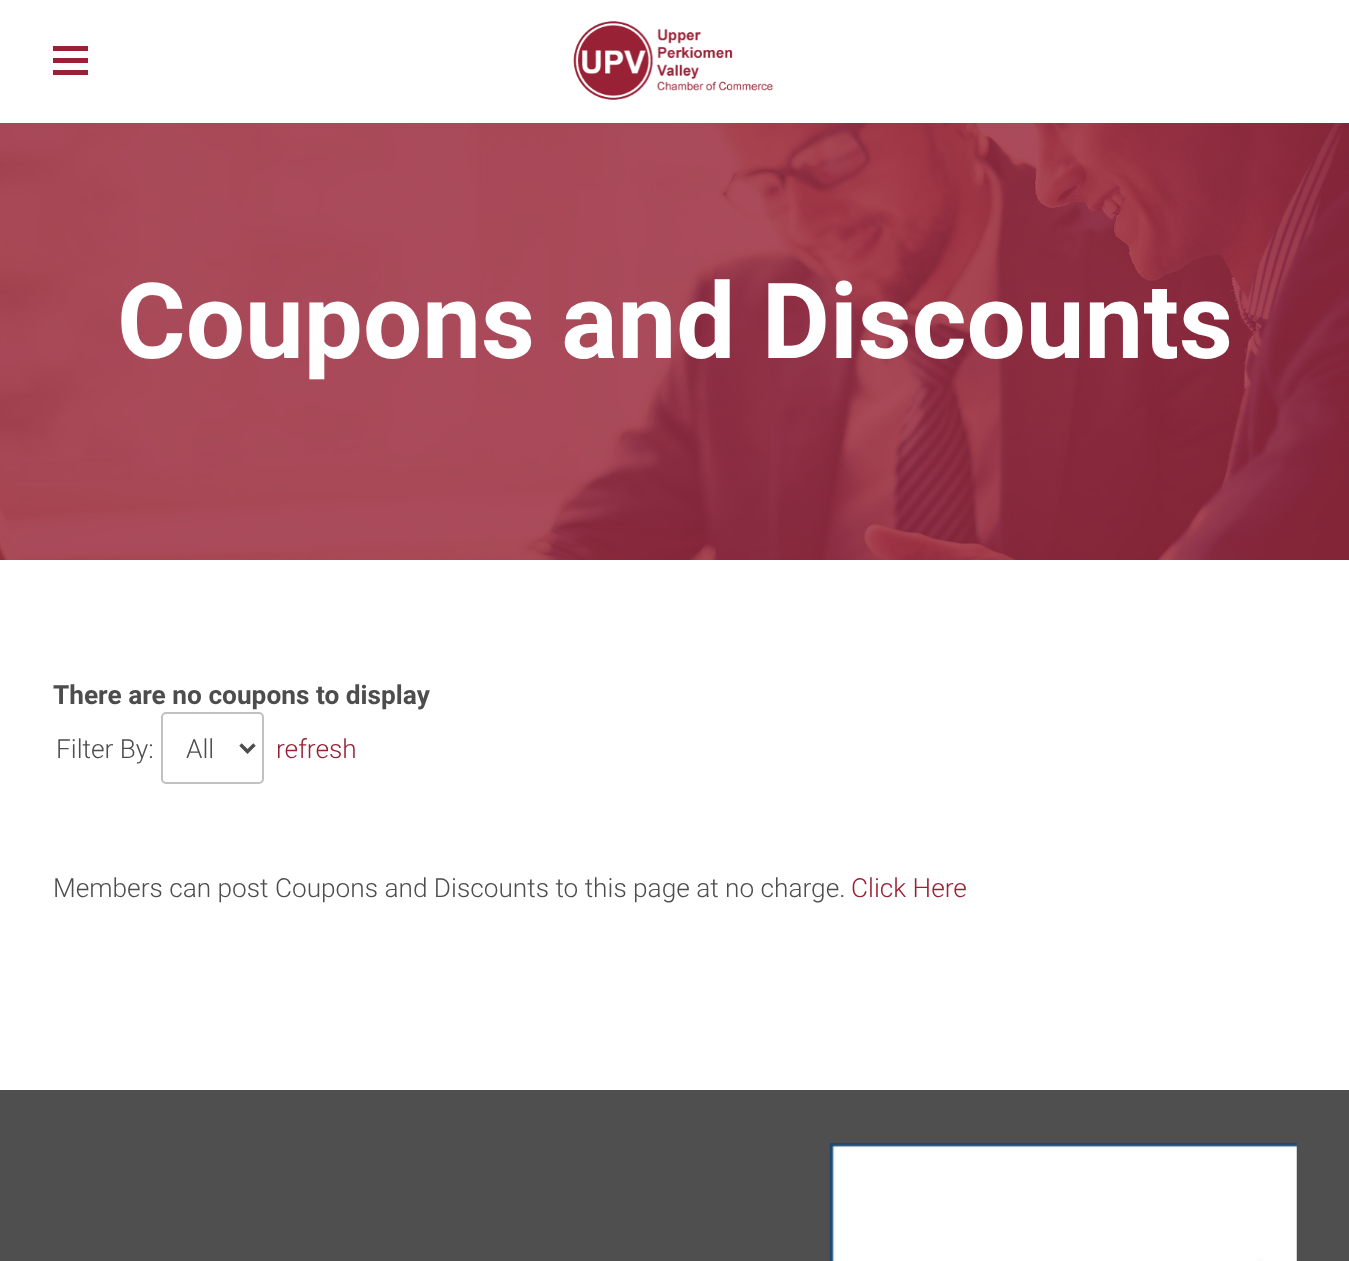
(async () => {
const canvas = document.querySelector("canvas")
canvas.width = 1349
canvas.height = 1261
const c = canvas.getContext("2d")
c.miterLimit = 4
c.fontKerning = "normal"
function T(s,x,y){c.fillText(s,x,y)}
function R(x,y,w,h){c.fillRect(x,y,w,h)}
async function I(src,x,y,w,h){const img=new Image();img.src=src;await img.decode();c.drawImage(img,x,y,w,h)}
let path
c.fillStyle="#fff"
R(0,0,1349,1261)
await I("2.png",0,123,1349,437)
c.fillStyle="#6363631a"
c.filter="blur(2.5px)"
c.beginPath()
c.rect(0,0,1349,123)
c.fill()
c.filter="none"
c.fillStyle="#fff"
R(0,0,1349,123)
c.fillStyle="#982135"
R(53,46,35,5)
R(53,58,35,5)
R(53,70,35,5)
await I("1.png",573,21,201,79)
c.font="bold 105px Roboto"
c.fillStyle="#fff"
T("Coupons and Discounts",117,358)
c.font="bold 26.25px Roboto"
c.fillStyle="#4d4d4d"
T("There are no coupons to display",53,704)
c.font="300 26.25px Roboto"
T("Filter By:",56,758)
c.beginPath()
c.roundRect(162,713,101,70,4)
c.strokeStyle="#c1c1c1"
c.lineWidth=2
c.stroke()
path = new Path2D("M240.5 744.5l7 7l7-7")
c.strokeStyle="#4d4d4d"
c.lineWidth=3.5
c.stroke(path)
T("All",186,758)
c.fillStyle="#982135"
T("refresh",276,758)
c.fillStyle="#4d4d4d"
T("Members can post Coupons and Discounts to this page at no charge.",53,897)
c.fillStyle="#982135"
T("Click Here",851,897)
c.fillStyle="#4f4f4f"
R(0,1090,1349,171)
await I("3.png",829,1143,468,118)
})()
